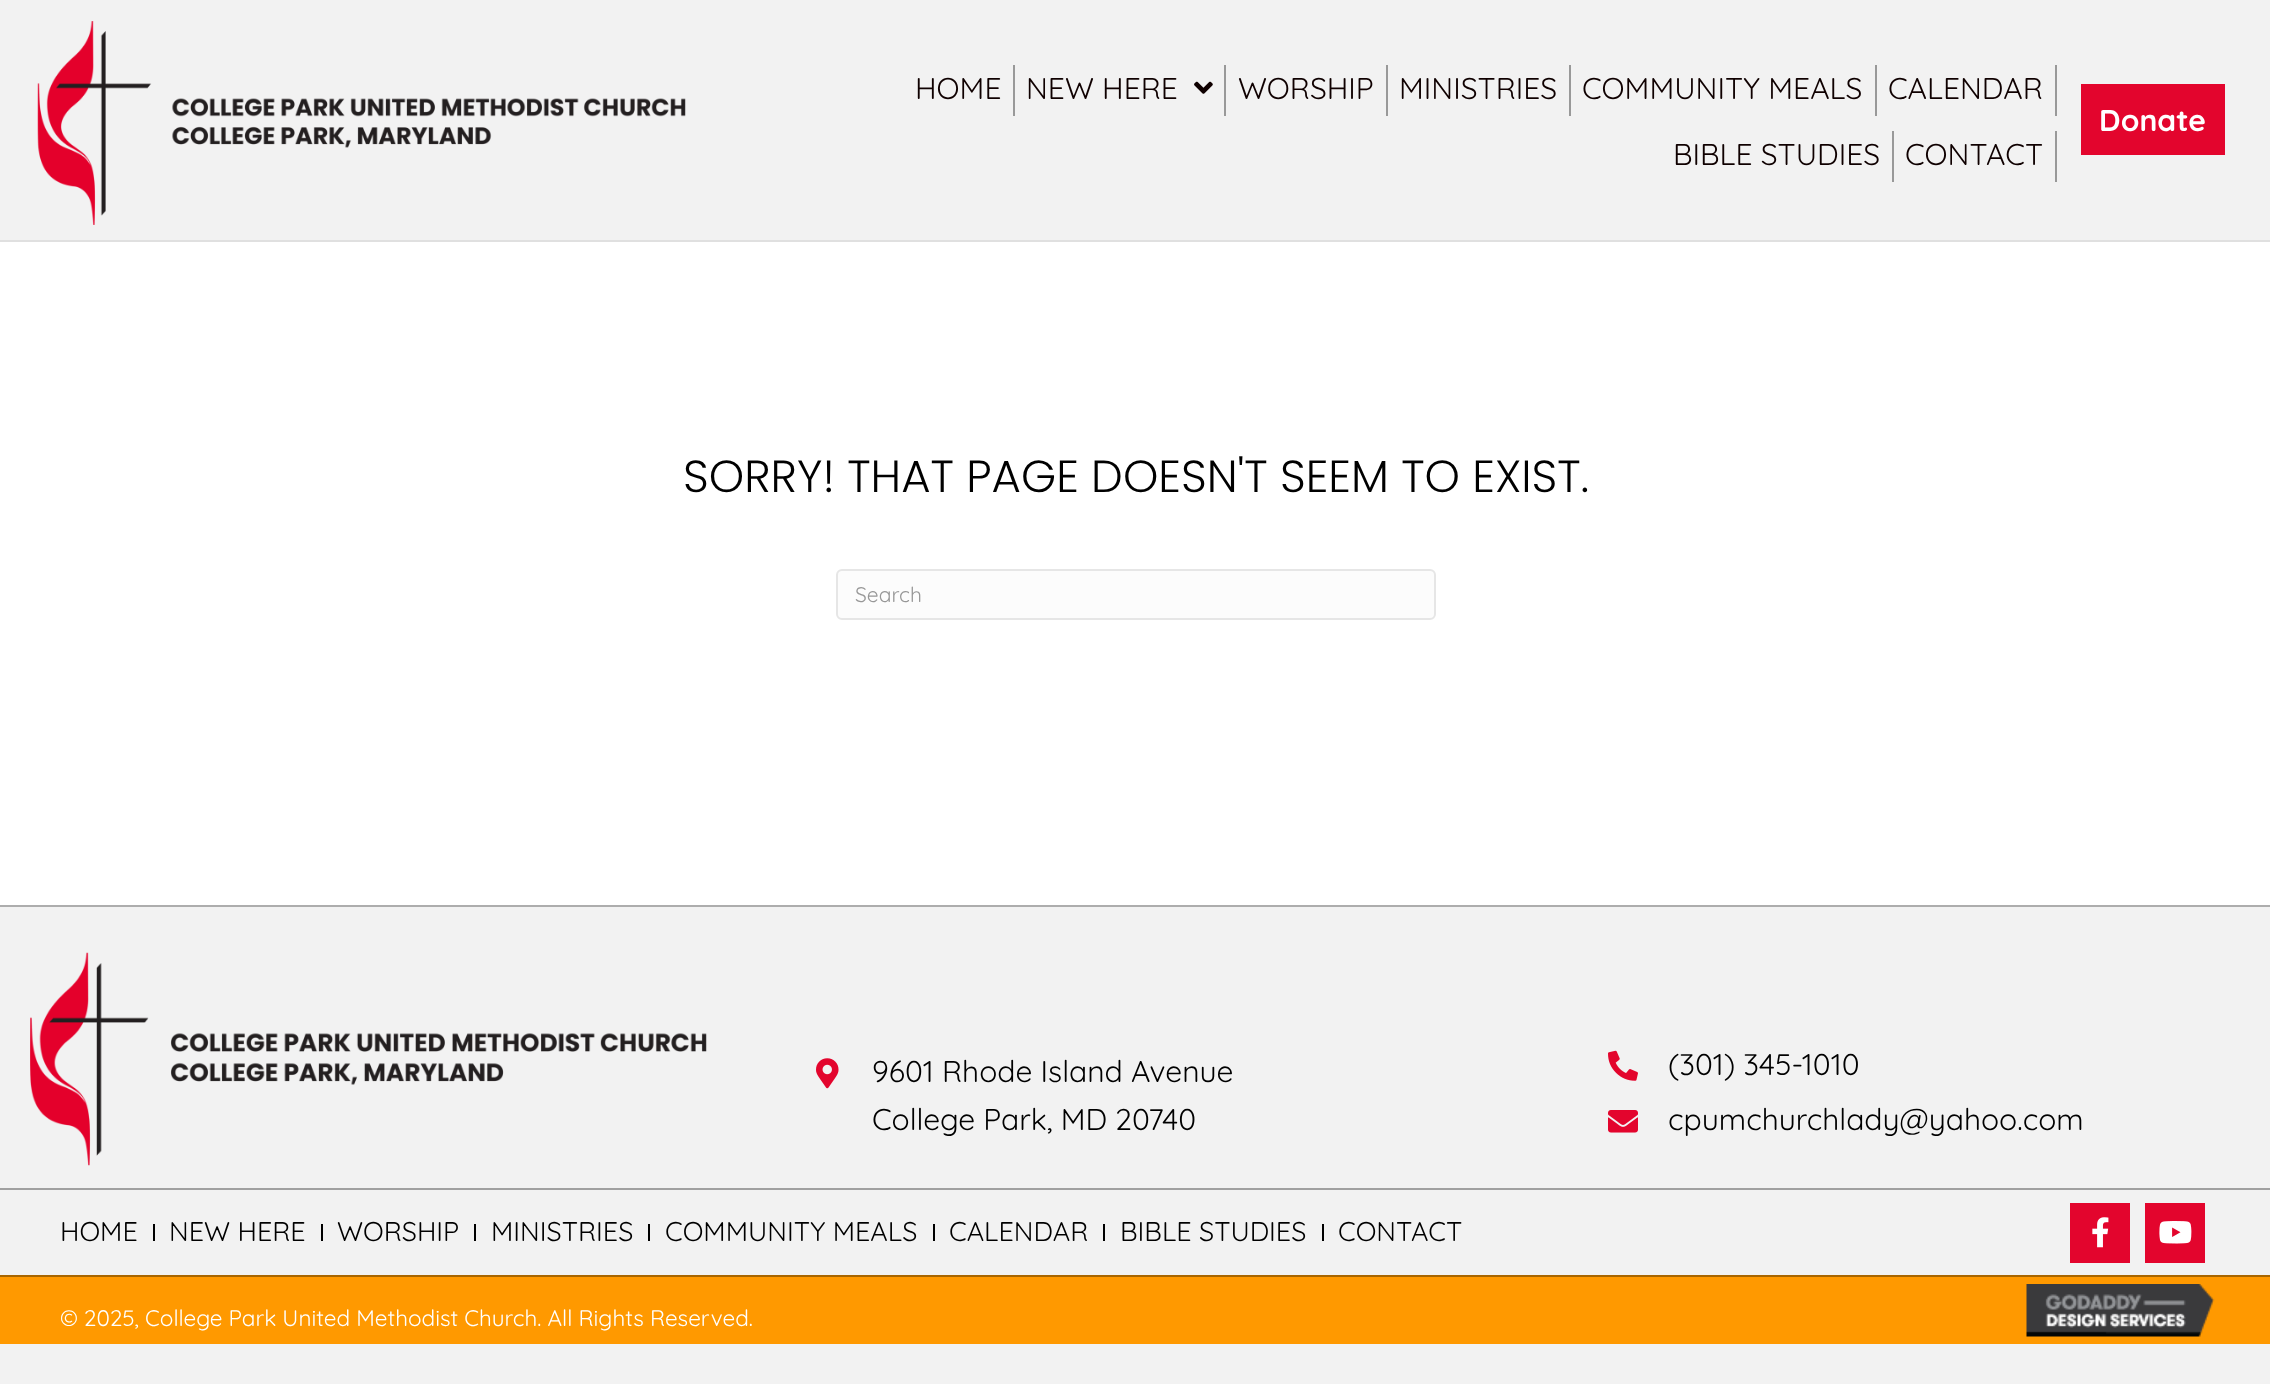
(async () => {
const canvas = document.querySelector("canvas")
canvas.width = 2270
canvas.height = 1384
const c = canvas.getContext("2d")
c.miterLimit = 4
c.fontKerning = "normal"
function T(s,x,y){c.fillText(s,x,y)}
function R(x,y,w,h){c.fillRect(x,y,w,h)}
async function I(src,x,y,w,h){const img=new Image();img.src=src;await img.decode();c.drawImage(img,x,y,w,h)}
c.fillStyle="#f2f2f2"
R(0,0,2270,1384)
c.fillStyle="#e0e0e0"
R(0,240,2270,2)
await I("1.png",37,21,649,204)
c.fillStyle="#999"
R(1013,65,2,51)
c.font="30px Quicksand"
c.fillStyle="#0f0000"
T("HOME",915,99)
c.fillStyle="#999"
R(1224,65,2,51)
c.fillStyle="#0f0000"
T("NEW HERE",1026,99)
await I("2.png",1194,81,19,13)
c.fillStyle="#999"
R(1386,65,2,51)
c.fillStyle="#0f0000"
T("WORSHIP",1238,99)
c.fillStyle="#999"
R(1569,65,2,51)
c.fillStyle="#0f0000"
T("MINISTRIES",1399,99)
c.fillStyle="#999"
R(1875,65,2,51)
c.fillStyle="#0f0000"
T("COMMUNITY MEALS",1582,99)
c.fillStyle="#999"
R(2055,65,2,51)
c.fillStyle="#0f0000"
T("CALENDAR",1888,99)
c.fillStyle="#999"
R(1892,131,2,51)
c.fillStyle="#0f0000"
T("BIBLE STUDIES",1673,165)
c.fillStyle="#999"
R(2055,131,2,51)
c.fillStyle="#0f0000"
T("CONTACT",1905,165)
c.fillStyle="#e3052d"
R(2081,84,144,71)
c.font="bold 30px Quicksand"
c.fillStyle="#fff"
T("Donate",2099,131)
R(0,242,2270,663)
c.font="300 45px Poppins"
c.fillStyle="#000"
T("SORRY! THAT PAGE DOESN'T SEEM TO EXIST.",683,492)
c.fillStyle="#fcfcfc"
c.beginPath()
c.roundRect(837,570,598,49,5)
c.fill()
c.strokeStyle="#e6e6e6"
c.lineWidth=2
c.stroke()
c.font="21px Quicksand"
c.fillStyle="#979797"
T("Search",855,602)
c.fillStyle="#adadad"
R(0,905,2270,2)
await I("3.png",30,952,677,214)
await I("4.png",816,1058,23,31)
c.font="30px Quicksand"
c.fillStyle="#000"
T("9601 Rhode Island Avenue",872,1082)
T("College Park, MD 20740",872,1130)
await I("5.png",1608,1050,30,31)
T("(301) 345-1010",1668,1075)
await I("6.png",1608,1110,30,23)
T("cpumchurchlady@yahoo.com",1668,1130)
c.fillStyle="#a0a0a0"
R(0,1188,2270,2)
c.font="27px Quicksand"
c.fillStyle="#000"
T("HOME",60,1241)
R(153,1224,2,17)
T("NEW HERE",169,1241)
R(321,1224,2,17)
T("WORSHIP",337,1241)
R(474,1224,2,17)
T("MINISTRIES",491,1241)
R(648,1224,2,17)
T("COMMUNITY MEALS",665,1241)
R(933,1224,2,17)
T("CALENDAR",949,1241)
R(1103,1224,2,17)
T("BIBLE STUDIES",1120,1241)
R(1322,1224,2,17)
T("CONTACT",1338,1241)
c.fillStyle="#e3052d"
R(2070,1203,60,60)
await I("7.png",2092,1217,17,31)
R(2145,1203,60,60)
await I("8.png",2159,1221,33,23)
c.fillStyle="#f90"
R(0,1277,2270,67)
c.fillStyle="#a86500"
R(0,1275,2270,2)
c.font="22.5px Quicksand"
c.fillStyle="#fff"
T("© 2025, College Park United Methodist Church. All Rights Reserved.",60,1326)
await I("9.png",2026,1284,189,53)
})()
